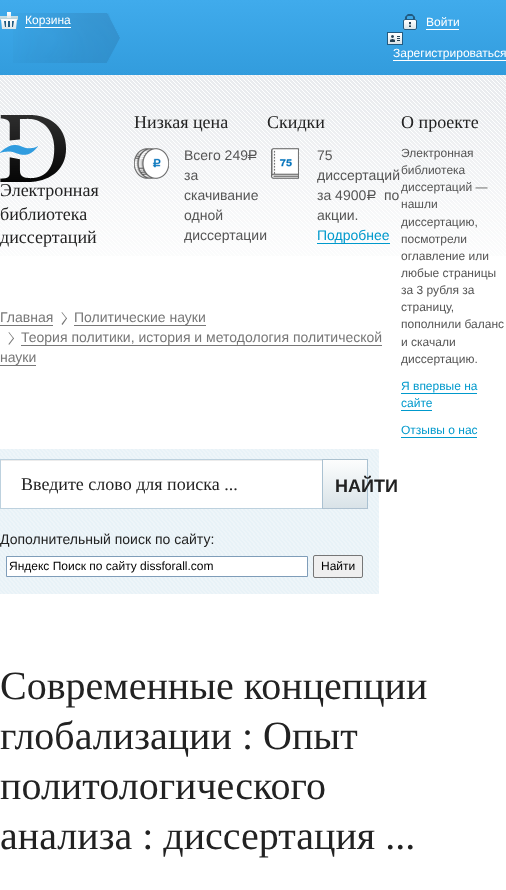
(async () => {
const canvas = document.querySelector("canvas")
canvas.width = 506
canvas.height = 890
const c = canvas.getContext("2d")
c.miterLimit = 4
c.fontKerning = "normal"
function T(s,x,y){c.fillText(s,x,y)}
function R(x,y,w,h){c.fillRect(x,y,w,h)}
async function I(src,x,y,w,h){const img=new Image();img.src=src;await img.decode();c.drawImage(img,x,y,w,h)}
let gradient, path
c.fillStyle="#fff"
R(0,0,506,890)
gradient = c.createLinearGradient(253,0,253,75)
gradient.addColorStop(0,"#40abec")
gradient.addColorStop(1,"#329cdd")
c.fillStyle = gradient
R(0,0,506,75)
await I("1.png",13,13,107,50)
await I("2.png",0,12,18,17)
c.fillStyle="#fff"
R(25,27,46,1)
c.font="12px Liberation Sans"
T("Корзина",25,24)
await I("3.png",403,14,14,16)
R(426,29,33,1)
T("Войти",426,26)
await I("4.png",387,32,16,13)
R(393,60,113,1)
T("Зарегистрироваться",393,57)
await I("5.png",0,75,506,181)
await I("6.png",0,115,66,67)
c.font="18px Liberation Serif"
c.fillStyle="#222"
T("Электронная",0,196)
T("библиотека",0,220)
T("диссертаций",0,243)
T("Низкая цена",134,128)
await I("7.png",134,148,35,31)
c.font="14px Liberation Sans"
c.fillStyle="#555"
T("Всего 249",184,160)
c.font="14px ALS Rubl"
T("a",247,160)
c.font="14px Liberation Sans"
T("за",184,180)
T("скачивание",184,200)
T("одной",184,220)
T("диссертации",184,240)
c.font="18px Liberation Serif"
c.fillStyle="#222"
T("Скидки",267,128)
await I("8.png",271,148,28,31)
c.font="14px Liberation Sans"
c.fillStyle="#555"
T("75",317,160)
T("диссертаций",317,180)
T("за 4900",317,200)
c.font="14px ALS Rubl"
T("a",366,200)
c.font="14px Liberation Sans"
T("по",384,200)
T("акции.",317,220)
c.fillStyle="#09c"
T("Подробнее",317,240)
R(317,243,73,1)
c.fillStyle="#777"
T("Главная",0,322)
R(0,325,53,1)
path = new Path2D("M62 312l5 6.5l-.5 .5l-5-6.5z")
c.fill(path)
path = new Path2D("M66.5 317.5l.5 1l-4.5 6.5l-1-1zm-57.5 14.5l5 6.5l-.5 .5l-5-6.5z")
c.fill(path)
T("Политические науки",74,322)
R(74,325,132,1)
path = new Path2D("M13.5 337.5l.5 1l-5 6.5l-.5-1z")
c.fill(path)
T("Теория политики, история и методология политической",21,342)
R(21,345,361,1)
T("науки",0,362)
R(0,365,36,1)
c.font="18px Liberation Serif"
c.fillStyle="#222"
T("О проекте",401,128)
c.font="12px Liberation Sans"
c.fillStyle="#555"
T("Электронная",401,157)
T("библиотека",401,174)
T("диссертаций —",401,191)
T("нашли",401,208)
T("диссертацию,",401,226)
T("посмотрели",401,243)
T("оглавление или",401,260)
T("любые страницы",401,277)
T("за 3 рубля за",401,294)
T("страницу,",401,311)
T("пополнили баланс",401,328)
T("и скачали",401,346)
T("диссертацию.",401,363)
c.fillStyle="#09c"
T("Я впервые на",401,390)
R(401,393,76,1)
T("сайте",401,407)
R(401,410,31,1)
T("Отзывы о нас",401,434)
R(401,437,76,1)
await I("9.png",0,449,379,145)
c.fillStyle="#fff"
R(1,461,321,47)
c.fillStyle="#ececec"
R(1,460,321,1)
c.strokeStyle="#bdd1de"
c.strokeRect(.5,459.5,322,49)
c.font="18px Liberation Serif"
c.fillStyle="#222"
T("Введите слово для поиска ...",21,490)
gradient = c.createLinearGradient(345,460,345,508)
gradient.addColorStop(0,"#fcfdfd")
gradient.addColorStop(1,"#d9e3e8")
c.fillStyle = gradient
R(323,460,44,48)
c.fillStyle="#abc1cf"
R(322,459,46,1)
c.fillStyle="#aac1d1"
R(367,459,1,50)
c.fillStyle="#aec1d0"
R(322,508,46,1)
c.fillStyle="#aac1d1"
R(322,459,1,50)
c.font="bold 18px Liberation Sans"
c.fillStyle="#222"
T("НАЙТИ",335,492)
c.font="14px Liberation Sans"
T("Дополнительный поиск по сайту:",0,544)
c.fillStyle="#fff"
c.beginPath()
c.rect(6.5,556.5,301,20)
c.fill()
c.strokeStyle="#7f9db9"
c.stroke()
c.font="12px Liberation Sans"
c.fillStyle="#000"
T("Яндекс Поиск по сайту dissforall.com",9,570)
c.fillStyle="#efefef"
c.beginPath()
c.roundRect(313.5,555.5,49,22,1.5)
c.fill()
c.strokeStyle="#767676"
c.stroke()
c.fillStyle="#000"
T("Найти",321,570)
c.font="40px Liberation Serif"
c.fillStyle="#222"
T("Современные концепции",0,699)
T("глобализации : Опыт",0,749)
T("политологического",0,799)
T("анализа : диссертация ...",0,849)
})()
